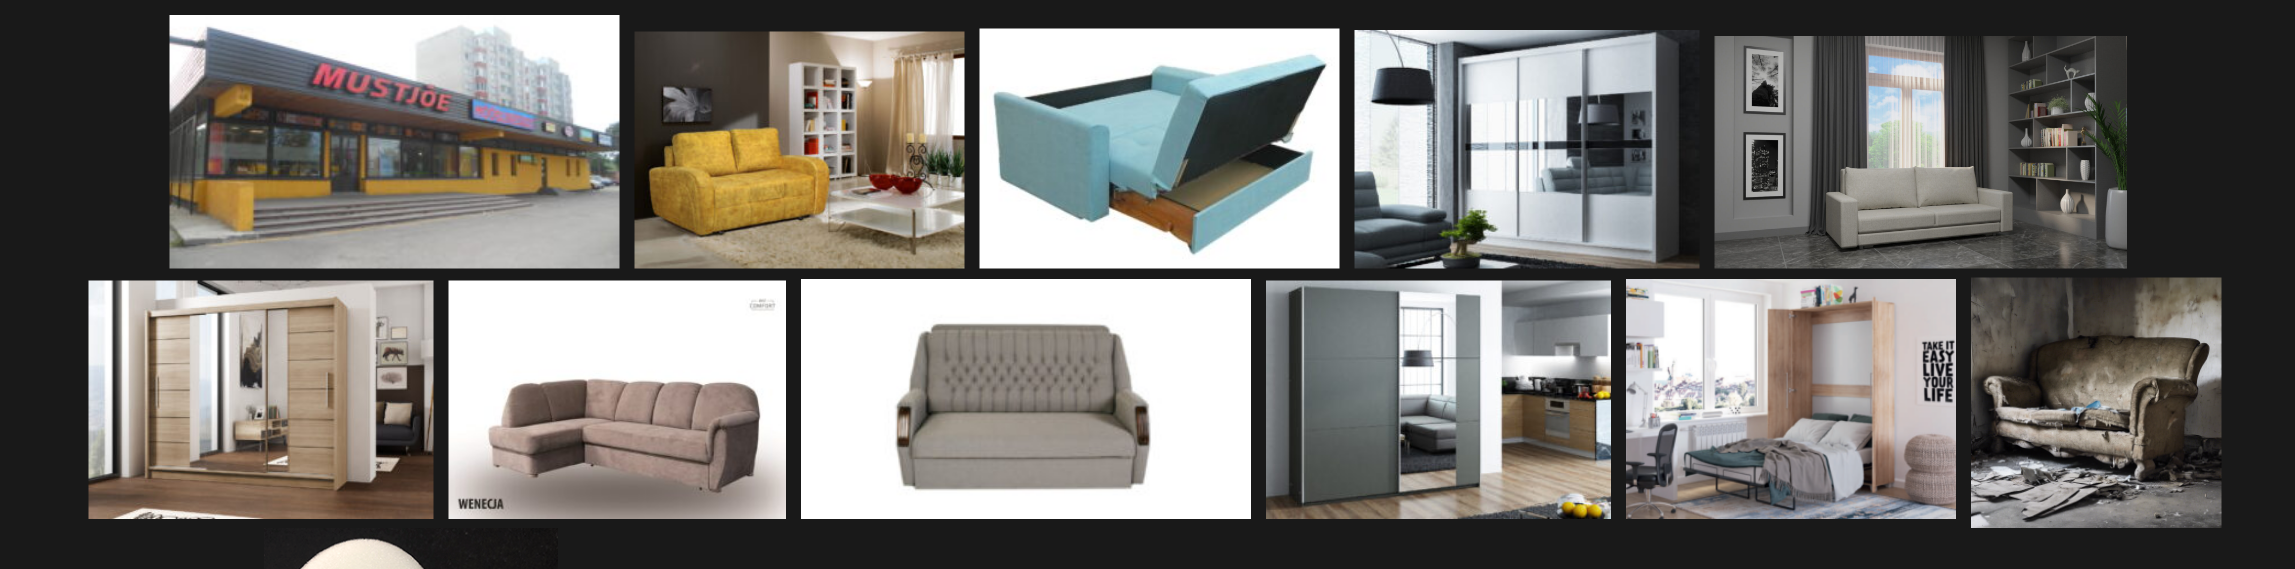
(async () => {
const canvas = document.querySelector("canvas")
canvas.width = 2295
canvas.height = 569
const c = canvas.getContext("2d")
c.miterLimit = 4
c.fontKerning = "normal"
function R(x,y,w,h){c.fillRect(x,y,w,h)}
async function I(src,x,y,w,h){const img=new Image();img.src=src;await img.decode();c.drawImage(img,x,y,w,h)}
c.fillStyle="#191919"
R(0,0,2295,569)
await I("1.png",169,15,451,254)
await I("2.png",634,31,331,238)
await I("3.png",979,28,361,241)
await I("4.png",1354,30,346,239)
await I("5.png",1714,36,413,233)
await I("6.png",88,280,346,239)
await I("7.png",448,280,338,239)
await I("8.png",801,279,450,240)
await I("9.png",1266,280,345,239)
await I("10.png",1626,279,330,240)
await I("11.png",1971,277,251,251)
await I("12.png",264,528,294,41)
})()
